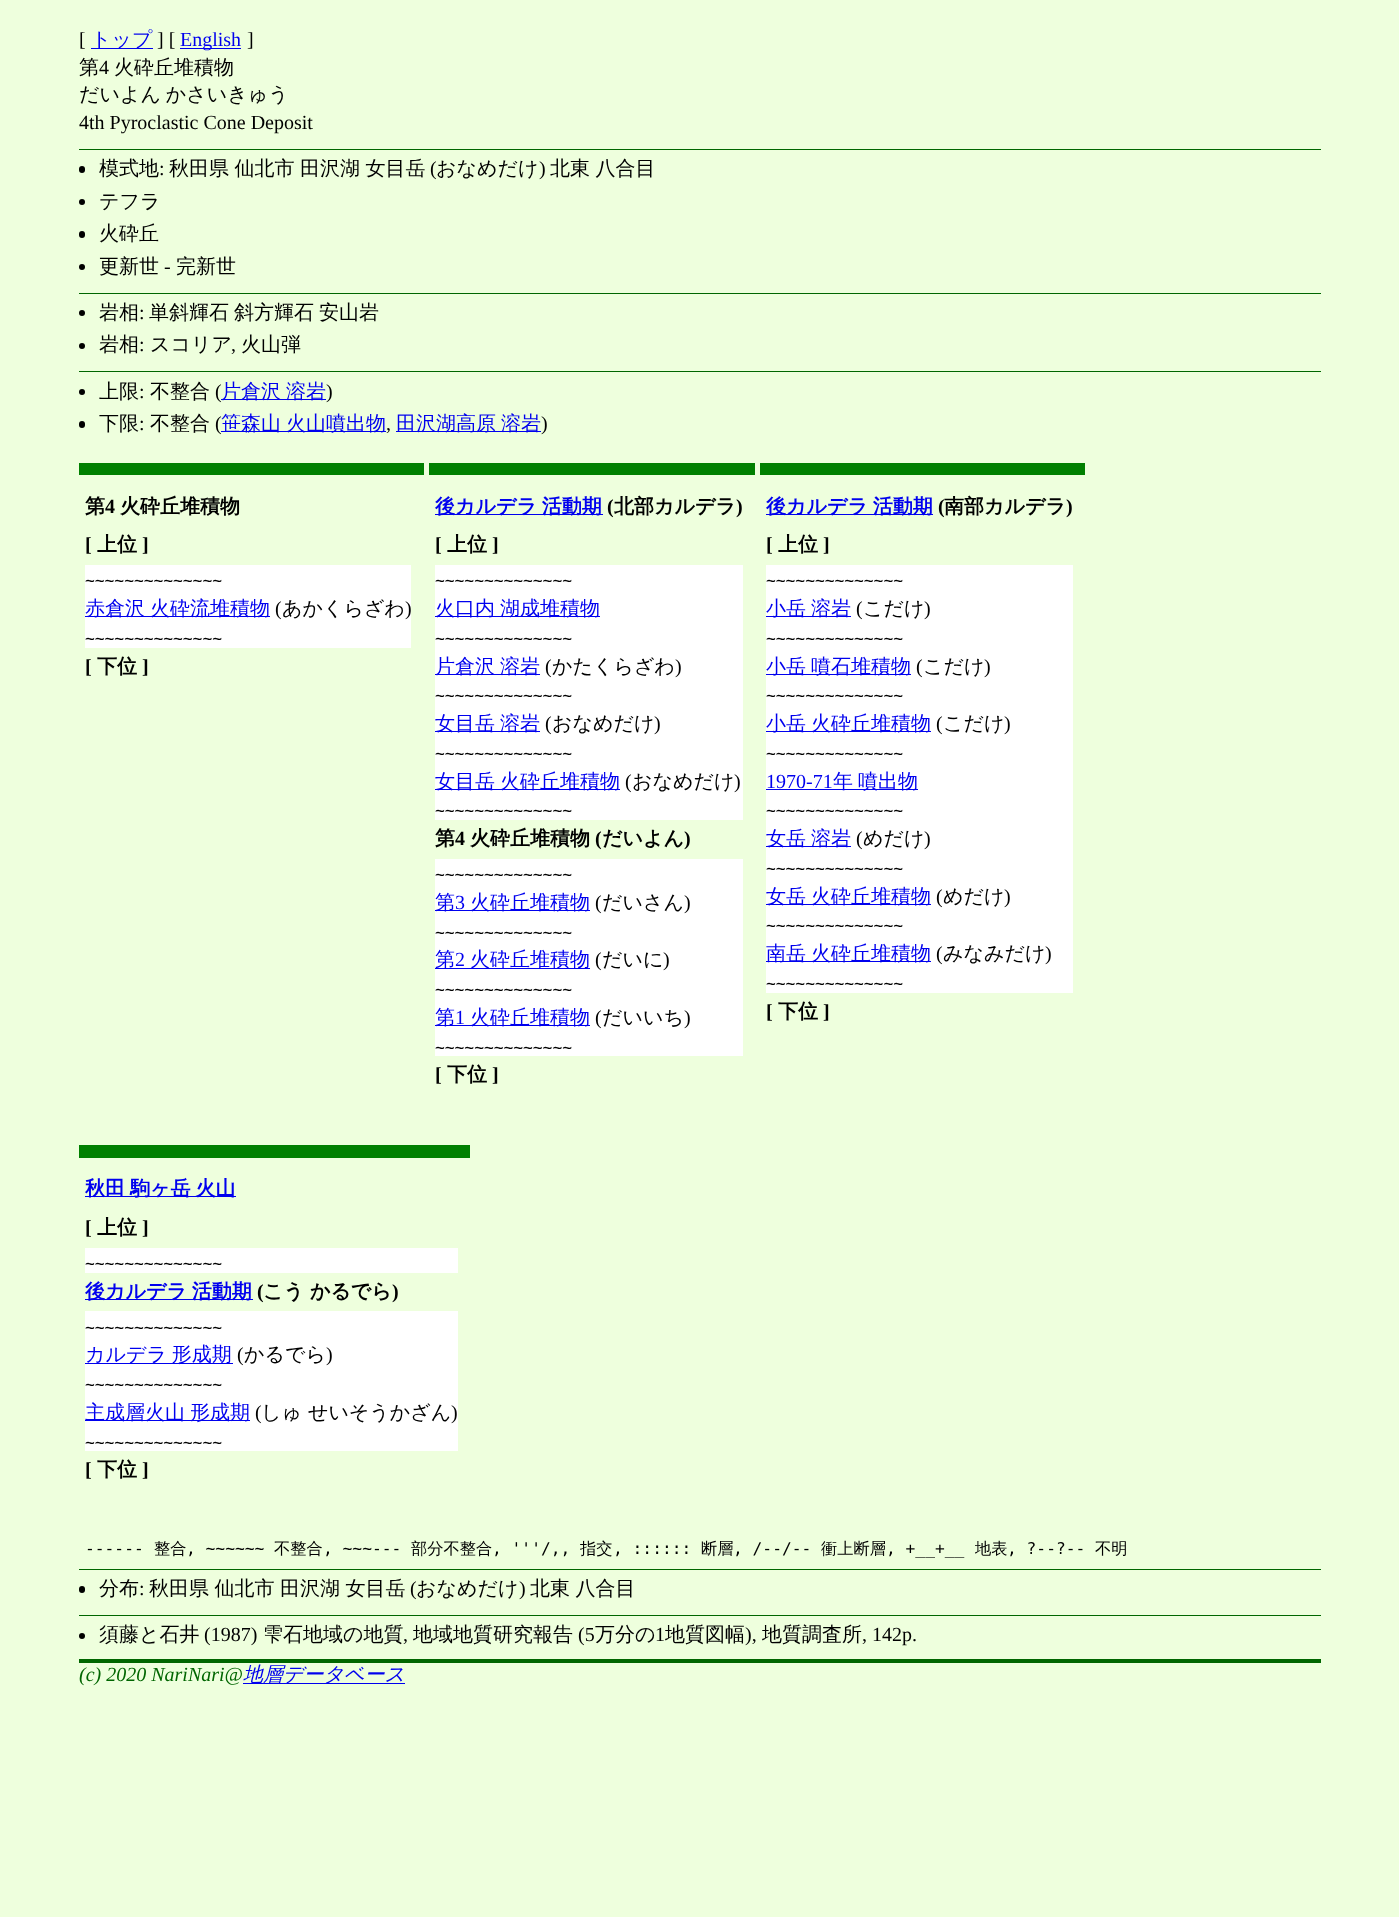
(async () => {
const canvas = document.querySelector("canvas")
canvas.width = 1399
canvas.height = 1917
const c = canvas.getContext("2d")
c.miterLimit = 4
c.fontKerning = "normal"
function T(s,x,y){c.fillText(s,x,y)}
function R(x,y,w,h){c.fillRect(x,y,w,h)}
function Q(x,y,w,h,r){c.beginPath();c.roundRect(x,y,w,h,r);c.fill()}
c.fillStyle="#efd"
R(0,0,1399,1917)
c.font="20px Liberation Serif"
c.fillStyle="#000"
T("[",79,46)
c.fillStyle="#00e"
R(91,48,62,1)
c.font="500 20px WenQuanYi Zen Hei"
T("トップ",91,46)
c.font="20px Liberation Serif"
c.fillStyle="#000"
T("] [",157,46)
c.fillStyle="#00e"
R(180,48,61,1)
T("English",180,46)
c.fillStyle="#000"
T("]",247,46)
c.font="500 20px WenQuanYi Zen Hei"
T("第",79,74)
c.font="20px Liberation Serif"
T("4",99,74)
c.font="500 20px WenQuanYi Zen Hei"
T("火砕丘堆積物",114,74)
c.wordSpacing="-1px"
T("だいよん かさいきゅう",79,101)
c.wordSpacing="0px"
c.font="20px Liberation Serif"
T("4th Pyroclastic Cone Deposit",79,129)
c.fillStyle="#060"
R(79,149,1242,1)
c.fillStyle="#000"
Q(79,166,6,7,3)
c.font="500 20px WenQuanYi Zen Hei"
T("模式地",99,175)
c.font="20px Liberation Serif"
T(":",159,175)
c.wordSpacing="-0.5px"
c.font="500 20px WenQuanYi Zen Hei"
T("秋田県 仙北市 田沢湖 女目岳",169,175)
c.wordSpacing="0px"
c.font="20px Liberation Serif"
T("(",430,175)
c.font="500 20px WenQuanYi Zen Hei"
T("おなめだけ",436,175)
c.font="20px Liberation Serif"
T(")",539,175)
c.wordSpacing="-0.5px"
c.font="500 20px WenQuanYi Zen Hei"
T("北東 八合目",550,175)
c.beginPath()
c.arc(82,202,3,0,7)
c.fill()
c.wordSpacing="0px"
T("テフラ",99,208)
Q(79,231,6,7,3)
T("火砕丘",99,240)
c.beginPath()
c.arc(82,267,3,0,7)
c.fill()
T("更新世",99,273)
c.font="20px Liberation Serif"
T("-",164,273)
c.font="500 20px WenQuanYi Zen Hei"
T("完新世",176,273)
c.fillStyle="#060"
R(79,293,1242,1)
c.fillStyle="#000"
c.beginPath()
c.arc(82,313,3,0,7)
c.fill()
T("岩相",99,319)
c.font="20px Liberation Serif"
T(":",139,319)
c.wordSpacing="-1px"
c.font="500 20px WenQuanYi Zen Hei"
T("単斜輝石 斜方輝石 安山岩",149,319)
c.beginPath()
c.arc(82,346,3,0,7)
c.fill()
c.wordSpacing="0px"
T("岩相",99,351)
c.font="20px Liberation Serif"
T(":",139,351)
c.font="500 20px WenQuanYi Zen Hei"
T("スコリア",150,351)
T("火山弾",241,351)
c.font="20px Liberation Serif"
T(",",231,351)
c.fillStyle="#060"
R(79,371,1242,1)
c.fillStyle="#000"
c.beginPath()
c.arc(82,392,3,0,7)
c.fill()
c.font="500 20px WenQuanYi Zen Hei"
T("上限",99,398)
c.font="20px Liberation Serif"
T(":",139,398)
c.font="500 20px WenQuanYi Zen Hei"
T("不整合",150,398)
c.font="20px Liberation Serif"
T("(",215,398)
c.fillStyle="#00e"
R(221,399,105,1)
c.wordSpacing="-1px"
c.font="500 20px WenQuanYi Zen Hei"
T("片倉沢 溶岩",221,398)
c.wordSpacing="0px"
c.font="20px Liberation Serif"
c.fillStyle="#000"
T(")",326,398)
Q(79,421,6,7,3)
c.font="500 20px WenQuanYi Zen Hei"
T("下限",99,430)
c.font="20px Liberation Serif"
T(":",139,430)
c.font="500 20px WenQuanYi Zen Hei"
T("不整合",150,430)
c.font="20px Liberation Serif"
T("(",215,430)
c.fillStyle="#00e"
R(221,431,165,1)
c.wordSpacing="-1px"
c.font="500 20px WenQuanYi Zen Hei"
T("笹森山 火山噴出物",221,430)
R(396,431,145,1)
T("田沢湖高原 溶岩",396,430)
c.wordSpacing="0px"
c.font="20px Liberation Serif"
c.fillStyle="#000"
T(")",541,430)
T(",",386,430)
c.fillStyle="#008000"
R(79,463,345,12)
c.fillStyle="#fff"
R(85,565,326,83)
c.font="bold 20px WenQuanYi Zen Hei"
c.fillStyle="#000"
T("第",85,513)
c.font="bold 20px Liberation Serif"
T("4",105,513)
c.font="bold 20px WenQuanYi Zen Hei"
T("火砕丘堆積物",120,513)
c.font="bold 20px Liberation Serif"
T("[",85,551)
c.font="bold 20px WenQuanYi Zen Hei"
T("上位",97,551)
c.font="bold 20px Liberation Serif"
T("]",142,551)
c.font="16.25px DejaVu Sans Mono"
T("~~~~~~~~~~~~~~",85,586)
c.fillStyle="#00e"
R(85,616,185,1)
c.wordSpacing="-1px"
c.font="500 20px WenQuanYi Zen Hei"
T("赤倉沢 火砕流堆積物",85,615)
c.wordSpacing="0px"
c.font="20px Liberation Serif"
c.fillStyle="#000"
T("(",275,615)
c.font="500 20px WenQuanYi Zen Hei"
T("あかくらざわ",282,615)
c.font="20px Liberation Serif"
T(")",405,615)
c.font="16.25px DejaVu Sans Mono"
T("~~~~~~~~~~~~~~",85,644)
c.font="bold 20px Liberation Serif"
T("[",85,673)
c.font="bold 20px WenQuanYi Zen Hei"
T("下位",97,673)
c.font="bold 20px Liberation Serif"
T("]",142,673)
c.fillStyle="#008000"
R(429,463,326,12)
c.fillStyle="#fff"
R(435,565,308,491)
c.fillStyle="#00e"
R(435,514,168,1)
c.wordSpacing="-1px"
c.font="bold 20px WenQuanYi Zen Hei"
T("後カルデラ 活動期",435,513)
c.wordSpacing="0px"
c.font="bold 20px Liberation Serif"
c.fillStyle="#000"
T("(",607,513)
c.font="bold 20px WenQuanYi Zen Hei"
T("北部カルデラ",614,513)
c.font="bold 20px Liberation Serif"
T(")",736,513)
T("[",435,551)
c.font="bold 20px WenQuanYi Zen Hei"
T("上位",447,551)
c.font="bold 20px Liberation Serif"
T("]",492,551)
c.font="16.25px DejaVu Sans Mono"
T("~~~~~~~~~~~~~~",435,586)
c.fillStyle="#00e"
R(435,616,165,1)
c.wordSpacing="-1px"
c.font="500 20px WenQuanYi Zen Hei"
T("火口内 湖成堆積物",435,615)
c.wordSpacing="0px"
c.font="16.25px DejaVu Sans Mono"
c.fillStyle="#000"
T("~~~~~~~~~~~~~~",435,644)
c.fillStyle="#00e"
R(435,674,105,1)
c.wordSpacing="-1px"
c.font="500 20px WenQuanYi Zen Hei"
T("片倉沢 溶岩",435,673)
c.wordSpacing="0px"
c.font="20px Liberation Serif"
c.fillStyle="#000"
T("(",545,673)
c.font="500 20px WenQuanYi Zen Hei"
T("かたくらざわ",552,673)
c.font="20px Liberation Serif"
T(")",675,673)
c.font="16.25px DejaVu Sans Mono"
T("~~~~~~~~~~~~~~",435,701)
c.fillStyle="#00e"
R(435,731,105,1)
c.wordSpacing="-1px"
c.font="500 20px WenQuanYi Zen Hei"
T("女目岳 溶岩",435,730)
c.wordSpacing="0px"
c.font="20px Liberation Serif"
c.fillStyle="#000"
T("(",545,730)
c.font="500 20px WenQuanYi Zen Hei"
T("おなめだけ",552,730)
c.font="20px Liberation Serif"
T(")",654,730)
c.font="16.25px DejaVu Sans Mono"
T("~~~~~~~~~~~~~~",435,759)
c.fillStyle="#00e"
R(435,789,185,1)
c.wordSpacing="-1px"
c.font="500 20px WenQuanYi Zen Hei"
T("女目岳 火砕丘堆積物",435,788)
c.wordSpacing="0px"
c.font="20px Liberation Serif"
c.fillStyle="#000"
T("(",625,788)
c.font="500 20px WenQuanYi Zen Hei"
T("おなめだけ",632,788)
c.font="20px Liberation Serif"
T(")",734,788)
c.font="16.25px DejaVu Sans Mono"
T("~~~~~~~~~~~~~~",435,816)
c.fillStyle="#efd"
R(435,820,308,39)
c.font="bold 20px WenQuanYi Zen Hei"
c.fillStyle="#000"
T("第",435,845)
c.font="bold 20px Liberation Serif"
T("4",455,845)
c.font="bold 20px WenQuanYi Zen Hei"
T("火砕丘堆積物",470,845)
c.font="bold 20px Liberation Serif"
T("(",595,845)
c.font="bold 20px WenQuanYi Zen Hei"
T("だいよん",602,845)
c.font="bold 20px Liberation Serif"
T(")",684,845)
c.font="16.25px DejaVu Sans Mono"
T("~~~~~~~~~~~~~~",435,880)
c.fillStyle="#00e"
R(435,910,155,1)
c.font="500 20px WenQuanYi Zen Hei"
T("第",435,909)
c.font="20px Liberation Serif"
T("3",455,909)
c.font="500 20px WenQuanYi Zen Hei"
T("火砕丘堆積物",470,909)
c.font="20px Liberation Serif"
c.fillStyle="#000"
T("(",595,909)
c.font="500 20px WenQuanYi Zen Hei"
T("だいさん",602,909)
c.font="20px Liberation Serif"
T(")",684,909)
c.font="16.25px DejaVu Sans Mono"
T("~~~~~~~~~~~~~~",435,938)
c.fillStyle="#00e"
R(435,968,155,1)
c.font="500 20px WenQuanYi Zen Hei"
T("第",435,966)
c.font="20px Liberation Serif"
T("2",455,966)
c.font="500 20px WenQuanYi Zen Hei"
T("火砕丘堆積物",470,966)
c.font="20px Liberation Serif"
c.fillStyle="#000"
T("(",595,966)
c.font="500 20px WenQuanYi Zen Hei"
T("だいに",602,966)
c.font="20px Liberation Serif"
T(")",663,966)
c.font="16.25px DejaVu Sans Mono"
T("~~~~~~~~~~~~~~",435,995)
c.fillStyle="#00e"
R(435,1025,155,1)
c.font="500 20px WenQuanYi Zen Hei"
T("第",435,1024)
c.font="20px Liberation Serif"
T("1",455,1024)
c.font="500 20px WenQuanYi Zen Hei"
T("火砕丘堆積物",470,1024)
c.font="20px Liberation Serif"
c.fillStyle="#000"
T("(",595,1024)
c.font="500 20px WenQuanYi Zen Hei"
T("だいいち",602,1024)
c.font="20px Liberation Serif"
T(")",684,1024)
c.font="16.25px DejaVu Sans Mono"
T("~~~~~~~~~~~~~~",435,1053)
c.font="bold 20px Liberation Serif"
T("[",435,1081)
c.font="bold 20px WenQuanYi Zen Hei"
T("下位",447,1081)
c.font="bold 20px Liberation Serif"
T("]",492,1081)
c.fillStyle="#008000"
R(760,463,325,12)
c.fillStyle="#fff"
R(766,565,307,428)
c.fillStyle="#00e"
R(766,514,167,1)
c.wordSpacing="-1px"
c.font="bold 20px WenQuanYi Zen Hei"
T("後カルデラ 活動期",766,513)
c.wordSpacing="0px"
c.font="bold 20px Liberation Serif"
c.fillStyle="#000"
T("(",938,513)
c.font="bold 20px WenQuanYi Zen Hei"
T("南部カルデラ",944,513)
c.font="bold 20px Liberation Serif"
T(")",1066,513)
T("[",766,551)
c.font="bold 20px WenQuanYi Zen Hei"
T("上位",778,551)
c.font="bold 20px Liberation Serif"
T("]",823,551)
c.font="16.25px DejaVu Sans Mono"
T("~~~~~~~~~~~~~~",766,586)
c.fillStyle="#00e"
R(766,616,85,1)
c.wordSpacing="-1px"
c.font="500 20px WenQuanYi Zen Hei"
T("小岳 溶岩",766,615)
c.wordSpacing="0px"
c.font="20px Liberation Serif"
c.fillStyle="#000"
T("(",856,615)
c.font="500 20px WenQuanYi Zen Hei"
T("こだけ",863,615)
c.font="20px Liberation Serif"
T(")",924,615)
c.font="16.25px DejaVu Sans Mono"
T("~~~~~~~~~~~~~~",766,644)
c.fillStyle="#00e"
R(766,674,145,1)
c.wordSpacing="-1px"
c.font="500 20px WenQuanYi Zen Hei"
T("小岳 噴石堆積物",766,673)
c.wordSpacing="0px"
c.font="20px Liberation Serif"
c.fillStyle="#000"
T("(",916,673)
c.font="500 20px WenQuanYi Zen Hei"
T("こだけ",923,673)
c.font="20px Liberation Serif"
T(")",984,673)
c.font="16.25px DejaVu Sans Mono"
T("~~~~~~~~~~~~~~",766,701)
c.fillStyle="#00e"
R(766,731,165,1)
c.wordSpacing="-1px"
c.font="500 20px WenQuanYi Zen Hei"
T("小岳 火砕丘堆積物",766,730)
c.wordSpacing="0px"
c.font="20px Liberation Serif"
c.fillStyle="#000"
T("(",936,730)
c.font="500 20px WenQuanYi Zen Hei"
T("こだけ",943,730)
c.font="20px Liberation Serif"
T(")",1004,730)
c.font="16.25px DejaVu Sans Mono"
T("~~~~~~~~~~~~~~",766,759)
c.font="20px Liberation Serif"
c.fillStyle="#00e"
T("1970-71",766,788)
R(766,789,152,1)
c.wordSpacing="-1px"
c.font="500 20px WenQuanYi Zen Hei"
T("年 噴出物",833,788)
c.wordSpacing="0px"
c.font="16.25px DejaVu Sans Mono"
c.fillStyle="#000"
T("~~~~~~~~~~~~~~",766,816)
c.fillStyle="#00e"
R(766,846,85,1)
c.wordSpacing="-1px"
c.font="500 20px WenQuanYi Zen Hei"
T("女岳 溶岩",766,845)
c.wordSpacing="0px"
c.font="20px Liberation Serif"
c.fillStyle="#000"
T("(",856,845)
c.font="500 20px WenQuanYi Zen Hei"
T("めだけ",863,845)
c.font="20px Liberation Serif"
T(")",924,845)
c.font="16.25px DejaVu Sans Mono"
T("~~~~~~~~~~~~~~",766,874)
c.fillStyle="#00e"
R(766,904,165,1)
c.wordSpacing="-1px"
c.font="500 20px WenQuanYi Zen Hei"
T("女岳 火砕丘堆積物",766,903)
c.wordSpacing="0px"
c.font="20px Liberation Serif"
c.fillStyle="#000"
T("(",936,903)
c.font="500 20px WenQuanYi Zen Hei"
T("めだけ",943,903)
c.font="20px Liberation Serif"
T(")",1004,903)
c.font="16.25px DejaVu Sans Mono"
T("~~~~~~~~~~~~~~",766,931)
c.fillStyle="#00e"
R(766,961,165,1)
c.wordSpacing="-1px"
c.font="500 20px WenQuanYi Zen Hei"
T("南岳 火砕丘堆積物",766,960)
c.wordSpacing="0px"
c.font="20px Liberation Serif"
c.fillStyle="#000"
T("(",936,960)
c.font="500 20px WenQuanYi Zen Hei"
T("みなみだけ",943,960)
c.font="20px Liberation Serif"
T(")",1045,960)
c.font="16.25px DejaVu Sans Mono"
T("~~~~~~~~~~~~~~",766,989)
c.font="bold 20px Liberation Serif"
T("[",766,1018)
c.font="bold 20px WenQuanYi Zen Hei"
T("下位",778,1018)
c.font="bold 20px Liberation Serif"
T("]",823,1018)
c.fillStyle="#008000"
R(79,1145,391,13)
c.fillStyle="#fff"
R(85,1248,373,203)
c.fillStyle="#00e"
R(85,1196,151,1)
c.wordSpacing="-1px"
c.font="bold 20px WenQuanYi Zen Hei"
T("秋田 駒ヶ岳 火山",85,1195)
c.wordSpacing="0px"
c.font="bold 20px Liberation Serif"
c.fillStyle="#000"
T("[",85,1234)
c.font="bold 20px WenQuanYi Zen Hei"
T("上位",97,1234)
c.font="bold 20px Liberation Serif"
T("]",142,1234)
c.font="16.25px DejaVu Sans Mono"
T("~~~~~~~~~~~~~~",85,1269)
c.fillStyle="#efd"
R(85,1273,373,38)
c.fillStyle="#00e"
R(85,1299,168,1)
c.wordSpacing="-1px"
c.font="bold 20px WenQuanYi Zen Hei"
T("後カルデラ 活動期",85,1298)
c.wordSpacing="0px"
c.font="bold 20px Liberation Serif"
c.fillStyle="#000"
T("(",257,1298)
c.font="bold 20px WenQuanYi Zen Hei"
T("こう かるでら",263,1298)
c.font="bold 20px Liberation Serif"
T(")",392,1298)
c.font="16.25px DejaVu Sans Mono"
T("~~~~~~~~~~~~~~",85,1333)
c.fillStyle="#00e"
R(85,1363,148,1)
c.wordSpacing="-1px"
c.font="500 20px WenQuanYi Zen Hei"
T("カルデラ 形成期",85,1361)
c.wordSpacing="0px"
c.font="20px Liberation Serif"
c.fillStyle="#000"
T("(",237,1361)
c.font="500 20px WenQuanYi Zen Hei"
T("かるでら",244,1361)
c.font="20px Liberation Serif"
T(")",326,1361)
c.font="16.25px DejaVu Sans Mono"
T("~~~~~~~~~~~~~~",85,1390)
c.fillStyle="#00e"
R(85,1420,165,1)
c.wordSpacing="-1px"
c.font="500 20px WenQuanYi Zen Hei"
T("主成層火山 形成期",85,1419)
c.wordSpacing="0px"
c.font="20px Liberation Serif"
c.fillStyle="#000"
T("(",255,1419)
c.font="500 20px WenQuanYi Zen Hei"
T("しゅ せいそうかざん",261,1419)
c.font="20px Liberation Serif"
T(")",451,1419)
c.font="16.25px DejaVu Sans Mono"
T("~~~~~~~~~~~~~~",85,1448)
c.font="bold 20px Liberation Serif"
T("[",85,1476)
c.font="bold 20px WenQuanYi Zen Hei"
T("下位",97,1476)
c.font="bold 20px Liberation Serif"
T("]",142,1476)
c.font="16.25px DejaVu Sans Mono"
T("------",85,1554)
c.font="500 16.25px WenQuanYi Zen Hei"
T("整合",154,1554)
c.font="16.25px DejaVu Sans Mono"
T(", ~~~~~~",186,1554)
c.font="500 16.25px WenQuanYi Zen Hei"
T("不整合",274,1554)
c.font="16.25px DejaVu Sans Mono"
T(", ~~~---",323,1554)
c.font="500 16.25px WenQuanYi Zen Hei"
T("部分不整合",411,1554)
c.font="16.25px DejaVu Sans Mono"
T(", '''/,,",492,1554)
c.font="500 16.25px WenQuanYi Zen Hei"
T("指交",580,1554)
c.font="16.25px DejaVu Sans Mono"
T(", ::::::",613,1554)
c.font="500 16.25px WenQuanYi Zen Hei"
T("断層",701,1554)
c.font="16.25px DejaVu Sans Mono"
T(", /--/--",733,1554)
c.font="500 16.25px WenQuanYi Zen Hei"
T("衝上断層",821,1554)
c.font="16.25px DejaVu Sans Mono"
T(", +__+__",886,1554)
c.font="500 16.25px WenQuanYi Zen Hei"
T("地表",975,1554)
c.font="16.25px DejaVu Sans Mono"
T(", ?--?--",1007,1554)
c.font="500 16.25px WenQuanYi Zen Hei"
T("不明",1095,1554)
c.fillStyle="#060"
R(79,1569,1242,1)
c.fillStyle="#000"
Q(79,1586,6,7,3)
c.font="500 20px WenQuanYi Zen Hei"
T("分布",99,1595)
c.font="20px Liberation Serif"
T(":",139,1595)
c.wordSpacing="-0.5px"
c.font="500 20px WenQuanYi Zen Hei"
T("秋田県 仙北市 田沢湖 女目岳",149,1595)
c.wordSpacing="0px"
c.font="20px Liberation Serif"
T("(",410,1595)
c.font="500 20px WenQuanYi Zen Hei"
T("おなめだけ",416,1595)
c.font="20px Liberation Serif"
T(")",519,1595)
c.wordSpacing="-0.5px"
c.font="500 20px WenQuanYi Zen Hei"
T("北東 八合目",530,1595)
c.fillStyle="#060"
R(79,1615,1242,1)
c.fillStyle="#000"
c.beginPath()
c.arc(82,1636,3,0,7)
c.fill()
c.wordSpacing="0px"
T("須藤と石井",99,1641)
c.font="20px Liberation Serif"
T("(1987)",204,1641)
c.font="500 20px WenQuanYi Zen Hei"
T("雫石地域の地質",263,1641)
T("地域地質研究報告",413,1641)
c.font="20px Liberation Serif"
T("(5",578,1641)
c.font="500 20px WenQuanYi Zen Hei"
T("万分の",595,1641)
c.font="20px Liberation Serif"
T("1",655,1641)
c.font="500 20px WenQuanYi Zen Hei"
T("地質図幅",665,1641)
c.font="20px Liberation Serif"
T("),",745,1641)
c.font="500 20px WenQuanYi Zen Hei"
T("地質調査所",762,1641)
c.font="20px Liberation Serif"
T(", 142p.",862,1641)
T(",",403,1641)
c.fillStyle="#060"
R(79,1659,1242,4)
c.font="italic 20px Liberation Serif"
T("(c) 2020 NariNari@",79,1681)
c.fillStyle="#00e"
R(243,1683,162,1)
c.font="italic 500 20px WenQuanYi Zen Hei"
T("地層データベース",243,1681)
})()
